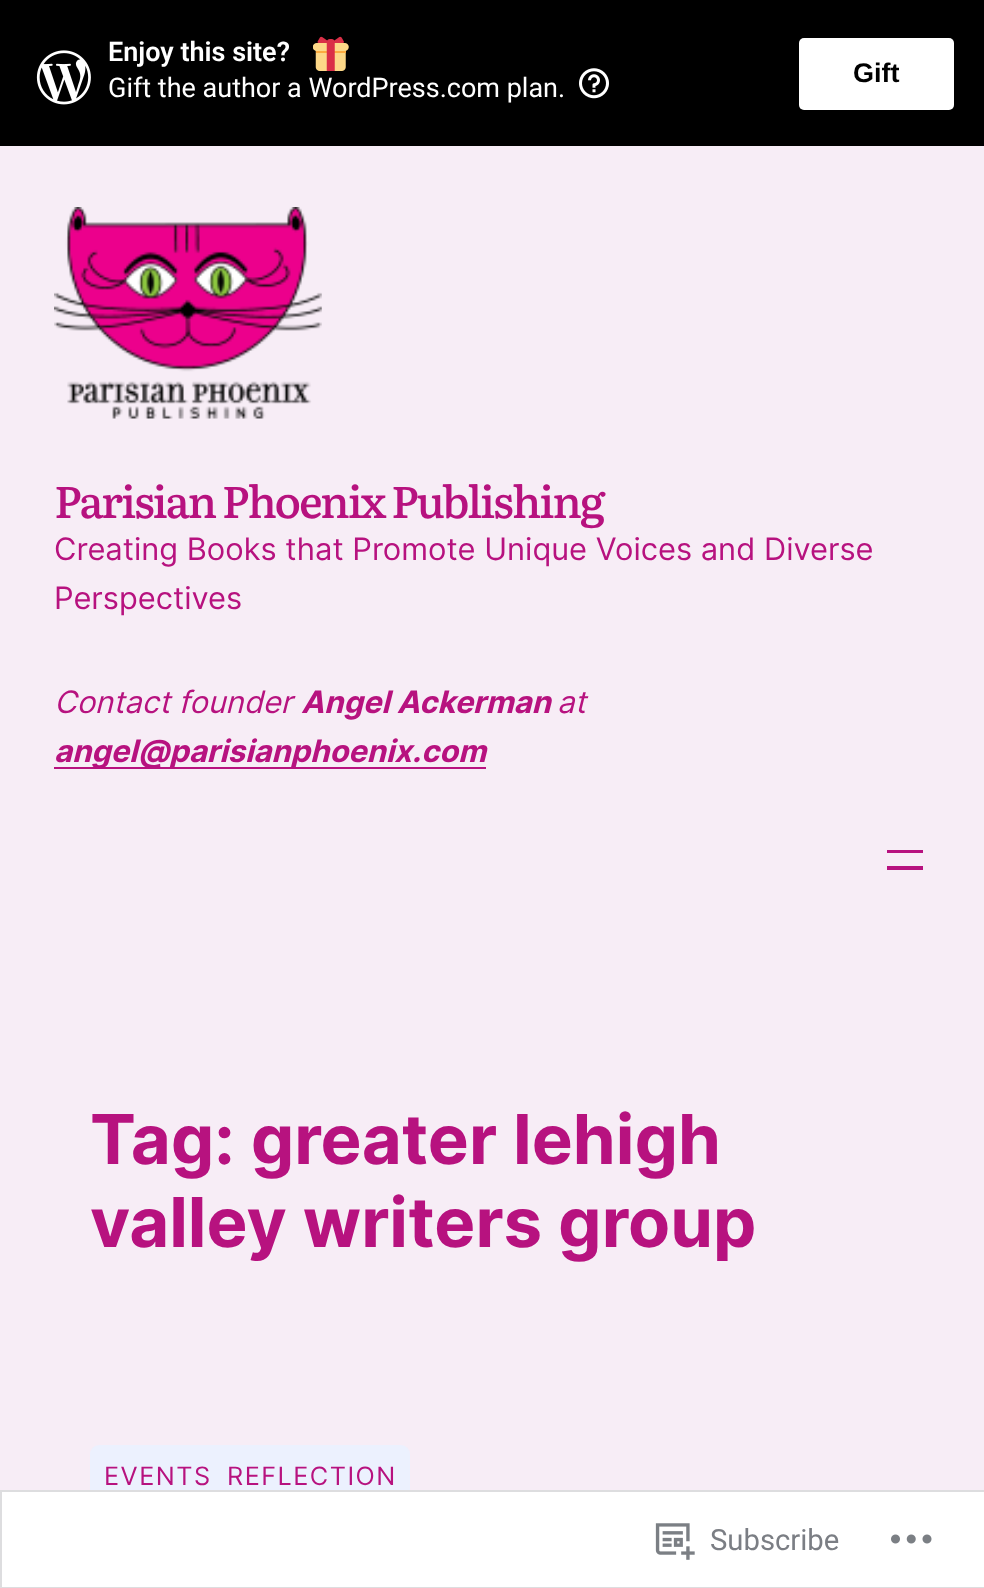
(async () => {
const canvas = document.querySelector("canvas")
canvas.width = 984
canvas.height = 1588
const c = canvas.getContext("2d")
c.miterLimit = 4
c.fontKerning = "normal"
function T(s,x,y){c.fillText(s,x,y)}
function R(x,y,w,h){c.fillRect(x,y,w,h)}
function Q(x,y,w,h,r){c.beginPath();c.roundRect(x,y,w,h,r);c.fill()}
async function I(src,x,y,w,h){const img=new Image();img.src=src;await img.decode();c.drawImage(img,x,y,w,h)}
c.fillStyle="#f7edf6"
R(0,0,984,1588)
c.fillStyle="#000"
R(0,0,984,146)
await I("1.png",36,50,55,55)
c.font="600 27px Roboto"
c.fillStyle="#fff"
T("Enjoy this site?",108,61)
await I("2.png",313,36,36,35)
c.font="27px Roboto"
T("Gift the author a WordPress.com plan.",108,97)
await I("3.png",579,68,30,31)
Q(799,38,155,72,5)
c.font="bold 27px Liberation Sans"
c.fillStyle="#000"
T("Gift",853,82)
await I("4.png",54,207,268,212)
c.letterSpacing="-2.15px"
c.font="500 44.4px Literata"
c.fillStyle="#b7127f"
T("Parisian Phoenix Publishing",54,518)
c.letterSpacing="0px"
c.font="30.85px Inter"
T("Creating Books that Promote Unique Voices and Diverse",54,560)
T("Perspectives",54,609)
c.font="italic 30.85px Inter"
T("Contact founder",54,713)
c.font="italic bold 30.85px Inter"
T("Angel Ackerman",301,713)
c.font="italic 30.85px Inter"
T("at",557,713)
R(54,767,432,2)
c.font="italic bold 30.85px Inter"
T("angel@parisianphoenix.com",54,762)
R(887,850,36,3)
R(887,866,36,4)
c.font="bold 68.75px Inter"
T("Tag: greater lehigh",90,1164)
T("valley writers group",90,1247)
c.fillStyle="#ecf1fe"
Q(90,1445,320,67,9)
c.letterSpacing="1.5px"
c.font="25.25px Inter"
c.fillStyle="#b7127f"
T("EVENTS",104,1485)
R(104,1490,108,2)
T("REFLECTION",227,1485)
R(227,1490,169,2)
c.fillStyle="#fffffffa"
R(0,1490,984,98)
c.strokeStyle="#dcdcdefa"
c.lineWidth=2
c.strokeRect(1,1491,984,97)
await I("5.png",655,1523,40,37)
c.letterSpacing="0px"
c.font="29.25px Roboto"
c.fillStyle="#7b7e84"
T("Subscribe",710,1550)
await I("6.png",891,1534,41,10)
})()
